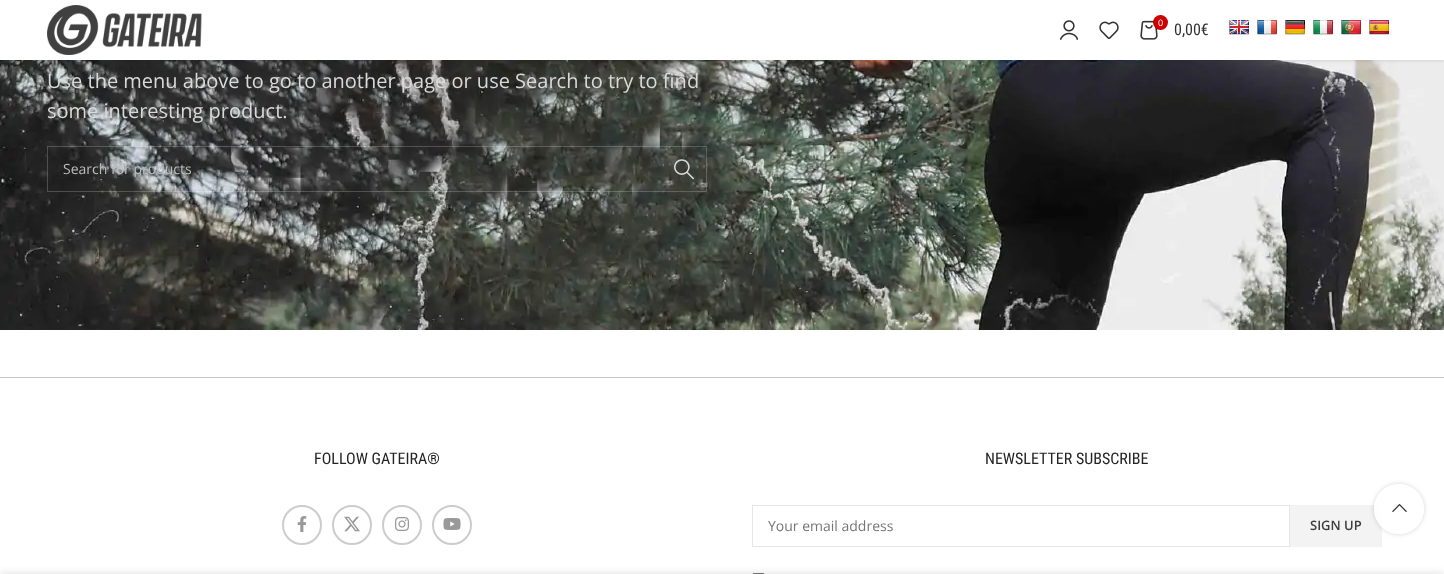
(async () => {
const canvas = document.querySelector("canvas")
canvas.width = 1444
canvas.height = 574
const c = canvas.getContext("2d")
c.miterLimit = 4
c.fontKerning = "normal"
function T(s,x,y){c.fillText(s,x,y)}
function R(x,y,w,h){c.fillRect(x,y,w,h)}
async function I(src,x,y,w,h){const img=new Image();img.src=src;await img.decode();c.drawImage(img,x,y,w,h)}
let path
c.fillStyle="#fff"
R(0,0,1444,574)
await I("11.png",0,60,1444,270)
c.fillStyle="#0000001a"
c.filter="blur(1.5px)"
c.beginPath()
c.rect(0,1,1444,60)
c.fill()
c.filter="none"
c.fillStyle="#fff"
R(0,0,1444,60)
await I("1.png",47,5,155,50)
await I("2.png",1060,20,18,20)
await I("3.png",1099,21,20,18)
await I("4.png",1140,20,18,20)
c.fillStyle="#cb0000"
c.beginPath()
c.arc(1160.5,22.5,7.5,0,7)
c.fill()
c.font="9px Open Sans"
c.fillStyle="#fff"
T("0",1158,26)
c.font="16px Roboto Condensed"
c.fillStyle="#333"
T("0,00€",1174,35)
await I("5.png",1229,20,20,15)
await I("6.png",1257,20,20,15)
await I("7.png",1285,20,20,15)
await I("8.png",1313,20,20,15)
await I("9.png",1341,20,20,15)
await I("10.png",1369,20,20,15)
c.font="20px Open Sans"
c.fillStyle="#d9d9d9"
T("Use the menu above to go to another page or use Search to try to find",47,88)
T("some interesting product.",47,118)
c.strokeStyle="#ffffff33"
c.strokeRect(47.5,146.5,659,45)
c.font="14px Open Sans"
c.fillStyle="#bbbcbd"
T("Search for products",63,174)
await I("12.png",674,159,20,21)
c.fillStyle="#c7c7c7"
R(0,377,1444,1)
c.font="16px Roboto Condensed"
c.fillStyle="#242424"
T("FOLLOW GATEIRA®",314,464)
c.beginPath()
c.arc(302,525,19,0,7)
c.strokeStyle="#ccc"
c.lineWidth=2
c.stroke()
await I("13.png",297,516,10,16)
c.beginPath()
c.arc(352,525,19,0,7)
c.stroke()
await I("14.png",344,516,16,16)
c.beginPath()
c.arc(402,525,19,0,7)
c.stroke()
await I("15.png",395,517,14,14)
c.beginPath()
c.arc(452,525,19,0,7)
c.stroke()
await I("16.png",443,518,18,12)
T("NEWSLETTER SUBSCRIBE",985,464)
c.strokeStyle="#e6e6e6"
c.lineWidth=1
c.strokeRect(752.5,505.5,537,41)
c.font="14px Open Sans"
c.fillStyle="#767676"
T("Your email address",768,531)
c.fillStyle="#f3f3f3"
R(1290,505,92,42)
c.font="600 13px Open Sans"
c.fillStyle="#3e3e3e"
T("SIGN UP",1310,530)
c.beginPath()
c.roundRect(752.5,573.5,12,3,1.5)
c.strokeStyle="#767676"
c.stroke()
c.save()
path = new Path2D("M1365 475h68v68h-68zm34 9c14 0 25 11 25 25c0 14-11 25-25 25c-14 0-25-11-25-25c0-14 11-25 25-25z")
c.clip(path,"evenodd")
c.fillStyle="#0000002b"
c.filter="blur(2.5px)"
c.beginPath()
c.roundRect(1374,484,50,50,25)
c.fill()
c.filter="none"
c.restore()
c.fillStyle="#ffffffe6"
c.beginPath()
c.arc(1399,509,25,0,7)
c.fill()
await I("17.png",1392,504,15,8)
c.fillStyle="#00000024"
c.filter="blur(4.5px)"
c.beginPath()
c.rect(0,574,1444,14)
c.fill()
c.filter="none"
})()
